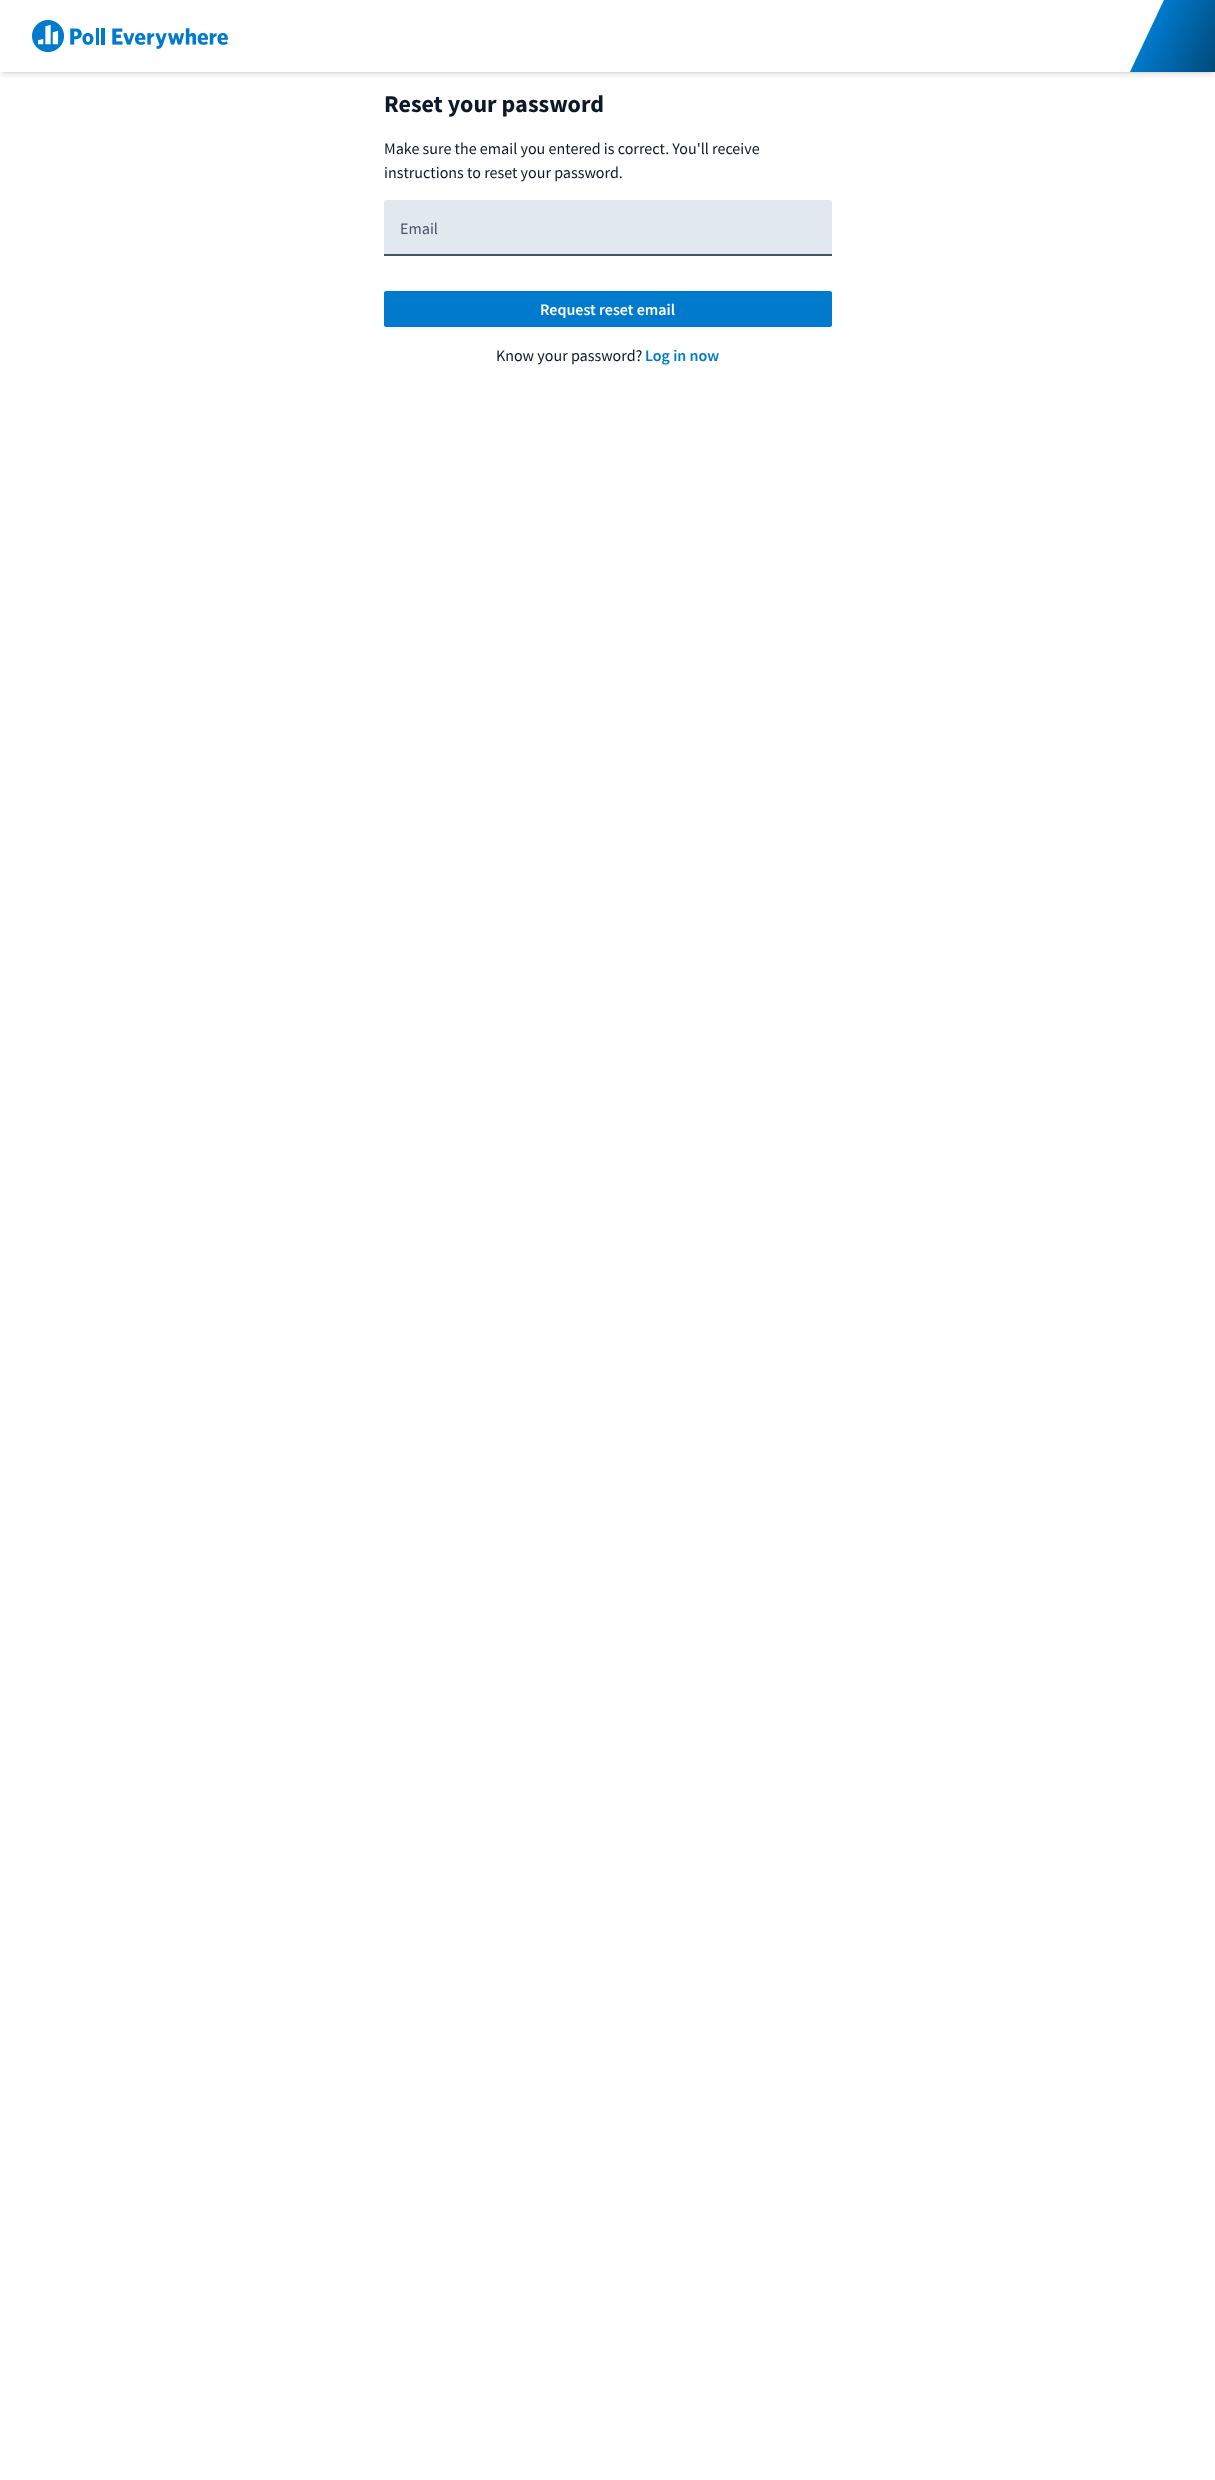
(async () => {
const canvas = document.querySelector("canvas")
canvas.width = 1215
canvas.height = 2480
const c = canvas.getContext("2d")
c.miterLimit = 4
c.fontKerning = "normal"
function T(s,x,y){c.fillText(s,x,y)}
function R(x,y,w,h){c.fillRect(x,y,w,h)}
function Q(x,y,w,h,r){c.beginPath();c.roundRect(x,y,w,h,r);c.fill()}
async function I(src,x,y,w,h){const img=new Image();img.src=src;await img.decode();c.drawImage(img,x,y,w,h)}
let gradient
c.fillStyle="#fff"
R(0,0,1215,2480)
c.save()
c.beginPath()
c.rect(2,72,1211,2)
c.clip()
c.fillStyle="#0000001a"
c.filter="blur(2px)"
c.beginPath()
c.rect(2,4,1211,68)
c.fill()
c.filter="none"
c.restore()
c.save()
c.beginPath()
c.rect(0,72,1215,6)
c.clip()
c.fillStyle="#0000001a"
c.filter="blur(3px)"
c.beginPath()
c.rect(1,5,1213,70)
c.fill()
c.filter="none"
c.restore()
await I("1.png",32,20,196,32)
gradient = c.createLinearGradient(1114,11,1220,61)
gradient.addColorStop(0,"#fff")
gradient.addColorStop(.34,"#fff")
gradient.addColorStop(.35,"#007acc")
gradient.addColorStop(1,"#00497a")
c.fillStyle = gradient
R(1130,0,85,72)
c.font="bold 24px Source Sans Pro"
c.fillStyle="#0f172a"
T("Reset your password",384,112)
c.font="16px Source Sans Pro"
T("Make sure the email you entered is correct. You'll receive",384,154)
T("instructions to reset your password.",384,178)
c.fillStyle="#e2e8f0"
c.beginPath()
c.roundRect(384,200,448,56,[2,2,0,0])
c.fill()
c.fillStyle="#475569"
T("Email",400,234)
R(384,254,448,2)
c.fillStyle="#007acc"
Q(384,291,448,36,2)
c.font="600 16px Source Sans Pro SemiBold"
c.fillStyle="#fff"
T("Request reset email",540,315)
c.font="16px Source Sans Pro"
c.fillStyle="#0f172a"
T("Know your password?",496,361)
c.font="600 16px Source Sans Pro SemiBold"
c.fillStyle="#007acc"
T("Log in now",645,361)
})()
